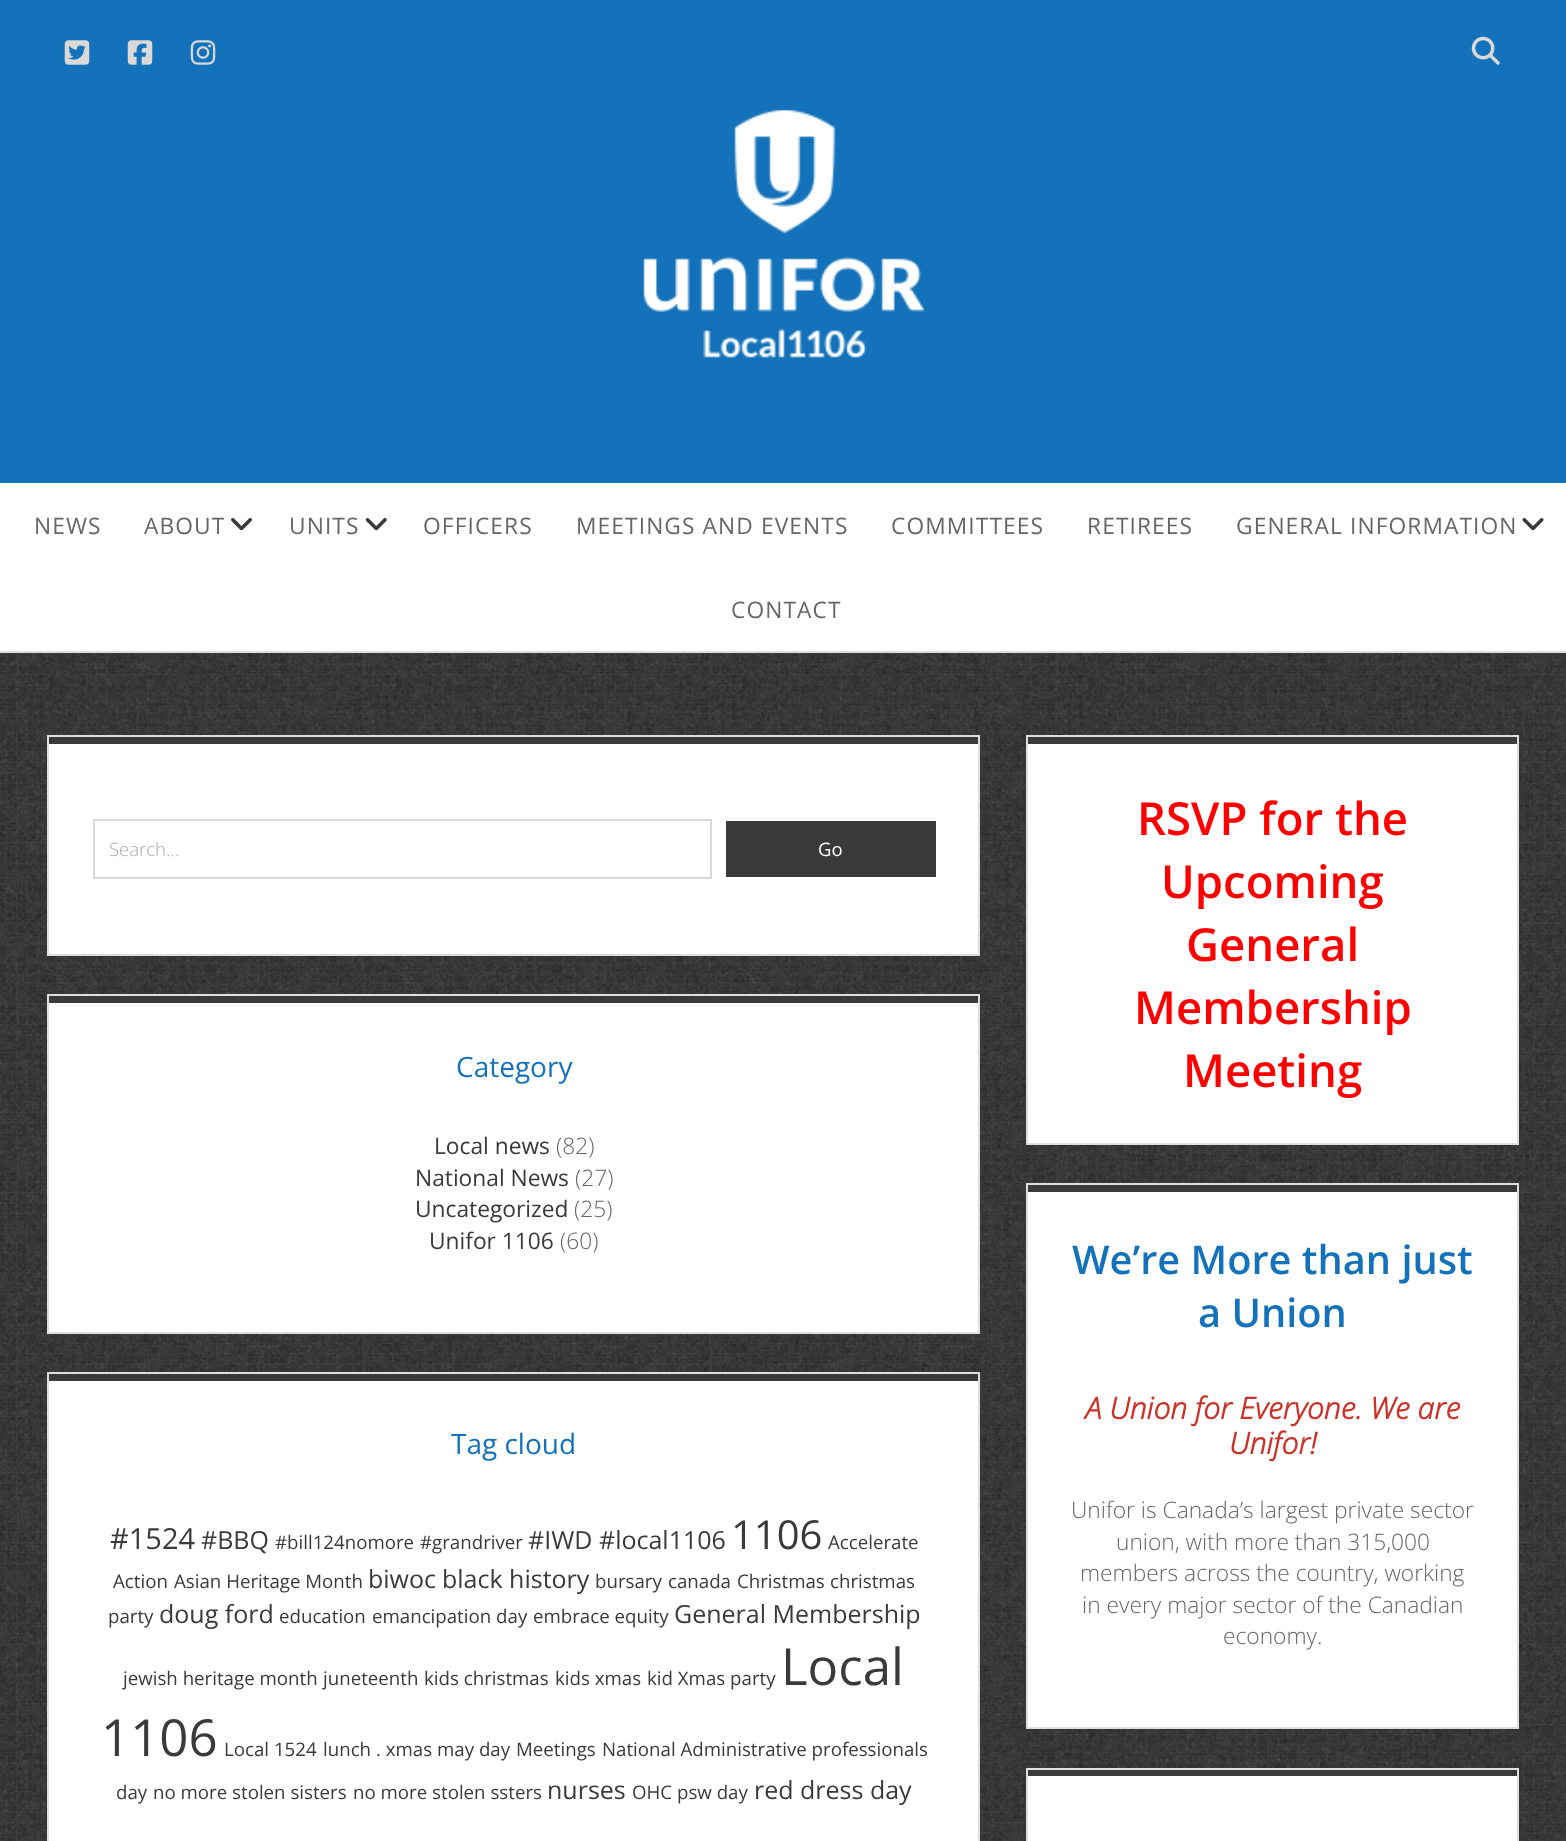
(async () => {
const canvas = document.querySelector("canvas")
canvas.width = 1566
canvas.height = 1841
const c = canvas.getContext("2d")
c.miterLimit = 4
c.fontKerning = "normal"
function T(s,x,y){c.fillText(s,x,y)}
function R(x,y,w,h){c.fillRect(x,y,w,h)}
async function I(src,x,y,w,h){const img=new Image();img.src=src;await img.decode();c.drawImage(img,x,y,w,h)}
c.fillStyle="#fff"
R(0,0,1566,1841)
await I("1.png",0,653,1566,1188)
c.fillStyle="#1472ba"
R(0,0,1566,483)
await I("2.png",64,40,26,25)
await I("3.png",127,40,26,25)
await I("4.png",190,40,26,25)
await I("5.png",1471,36,29,29)
await I("6.png",643,109,282,249)
c.fillStyle="#dedede"
R(0,651,1566,2)
c.letterSpacing="1.1px"
c.font="22.75px Open Sans"
c.fillStyle="#666"
T("NEWS",34,534)
T("ABOUT",144,534)
await I("7.png",231,518,21,13)
T("UNITS",289,534)
await I("8.png",365,518,22,13)
T("OFFICERS",423,534)
T("MEETINGS AND EVENTS",576,534)
T("COMMITTEES",891,534)
T("RETIREES",1087,534)
T("GENERAL INFORMATION",1236,534)
await I("9.png",1522,518,22,13)
T("CONTACT",731,618)
c.fillStyle="#fff"
R(49,744,929,210)
c.fillStyle="#3a3a3a"
R(49,737,929,7)
c.strokeStyle="#d9d9d9"
c.lineWidth=2
c.strokeRect(94,820,617,58)
c.strokeStyle="#dedede"
c.strokeRect(48,736,931,219)
c.letterSpacing="0px"
c.font="300 18.5px Open Sans"
c.fillStyle="#ababab"
T("Search...",109,856)
c.fillStyle="#3a3a3a"
R(726,821,210,56)
c.font="18.5px Open Sans"
c.fillStyle="#fff"
T("Go",818,856)
R(49,1003,929,329)
c.fillStyle="#3a3a3a"
R(49,996,929,7)
c.strokeRect(48,995,931,338)
c.font="28px Open Sans"
c.fillStyle="#1472ba"
T("Category",456,1077)
c.font="22.75px Open Sans"
c.fillStyle="#3a3a3a"
T("Local news",434,1154)
c.font="300 22.75px Open Sans"
c.fillStyle="#666"
T("(82)",556,1154)
c.font="22.75px Open Sans"
c.fillStyle="#3a3a3a"
T("National News",415,1186)
c.font="300 22.75px Open Sans"
c.fillStyle="#666"
T("(27)",575,1186)
c.font="22.75px Open Sans"
c.fillStyle="#3a3a3a"
T("Uncategorized",415,1217)
c.font="300 22.75px Open Sans"
c.fillStyle="#666"
T("(25)",574,1217)
c.font="22.75px Open Sans"
c.fillStyle="#3a3a3a"
T("Unifor 1106",429,1249)
c.font="300 22.75px Open Sans"
c.fillStyle="#666"
T("(60)",560,1249)
c.fillStyle="#fff"
R(49,1381,929,460)
c.fillStyle="#3a3a3a"
R(49,1374,929,7)
c.strokeRect(48,1373,931,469)
c.font="28px Open Sans"
c.fillStyle="#1472ba"
T("Tag cloud",451,1454)
c.font="29px Open Sans"
c.fillStyle="#3a3a3a"
T("#1524",110,1549)
c.font="25px Open Sans"
T("#BBQ",201,1549)
c.font="18.7px Open Sans"
T("#bill124nomore",275,1549)
T("#grandriver",420,1549)
c.font="25px Open Sans"
T("#IWD",528,1549)
T("#local1106",599,1549)
c.font="40px Open Sans"
T("1106",731,1549)
c.font="18.7px Open Sans"
T("Accelerate",828,1549)
T("Action",113,1588)
T("Asian Heritage Month",174,1588)
c.font="25px Open Sans"
T("biwoc",368,1588)
T("black history",442,1588)
c.font="18.7px Open Sans"
T("bursary",595,1588)
T("canada",668,1588)
T("Christmas",737,1588)
T("christmas",830,1588)
T("party",108,1623)
c.font="25px Open Sans"
T("doug ford",159,1623)
c.font="18.7px Open Sans"
T("education",279,1623)
T("emancipation day",372,1623)
T("embrace equity",533,1623)
c.font="25px Open Sans"
T("General Membership",674,1623)
c.font="18.7px Open Sans"
T("jewish heritage month",123,1685)
T("juneteenth",323,1685)
T("kids christmas",424,1685)
T("kids xmas",555,1685)
T("kid Xmas party",647,1685)
c.font="51px Open Sans"
T("Local",781,1685)
T("1106",101,1756)
c.font="18.7px Open Sans"
T("Local 1524",224,1756)
T("lunch . xmas",323,1756)
T("may day",437,1756)
T("Meetings",516,1756)
T("National Administrative professionals",602,1756)
T("day",116,1799)
T("no more stolen sisters",153,1799)
T("no more stolen ssters",353,1799)
c.font="25px Open Sans"
T("nurses",547,1799)
c.font="18.7px Open Sans"
T("OHC",632,1799)
T("psw day",677,1799)
c.font="25px Open Sans"
T("red dress day",754,1799)
c.fillStyle="#fff"
R(1028,744,489,399)
c.fillStyle="#3a3a3a"
R(1027,737,490,7)
c.strokeRect(1027,736,491,408)
c.font="600 45.5px Open Sans"
c.fillStyle="#f00"
T("RSVP for the",1137,835)
T("Upcoming",1161,898)
T("General",1186,961)
T("Membership",1134,1024)
T("Meeting",1183,1087)
c.fillStyle="#fff"
R(1028,1192,489,535)
c.fillStyle="#3a3a3a"
R(1027,1185,490,7)
c.strokeRect(1027,1184,491,544)
c.font="600 39.75px Open Sans"
c.fillStyle="#1472ba"
T("We’re More than just",1072,1274)
T("a Union",1198,1327)
c.font="italic bold 29.9px Open Sans"
c.fillStyle="#cb3328"
T("A Union for Everyone. We are",1085,1419)
T("Unifor!",1229,1454)
c.font="300 22.75px Open Sans"
c.fillStyle="#666"
T("Unifor is Canada’s largest private sector",1071,1518)
T("union, with more than 315,000",1116,1550)
T("members across the country, working",1080,1581)
T("in every major sector of the Canadian",1082,1613)
T("economy.",1223,1644)
c.fillStyle="#fff"
R(1028,1776,489,65)
c.fillStyle="#3a3a3a"
R(1027,1770,490,6)
c.strokeRect(1027,1769,491,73)
})()
